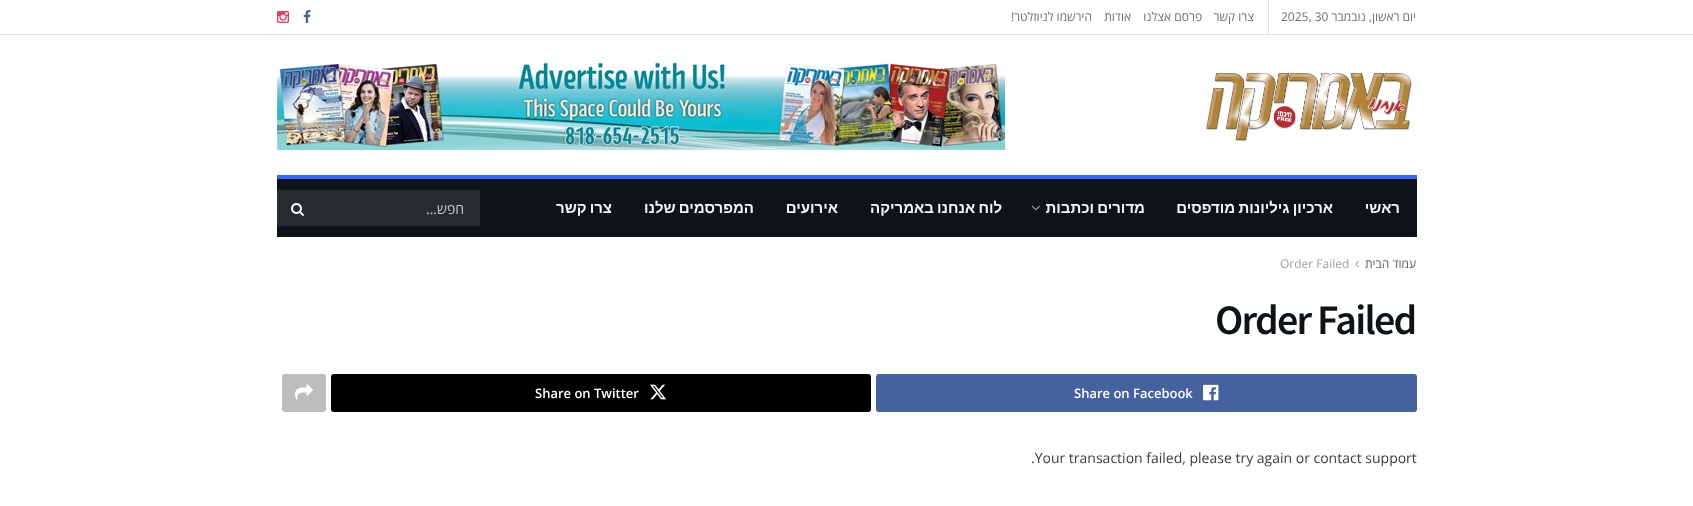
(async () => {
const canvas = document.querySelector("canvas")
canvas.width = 1693
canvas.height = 506
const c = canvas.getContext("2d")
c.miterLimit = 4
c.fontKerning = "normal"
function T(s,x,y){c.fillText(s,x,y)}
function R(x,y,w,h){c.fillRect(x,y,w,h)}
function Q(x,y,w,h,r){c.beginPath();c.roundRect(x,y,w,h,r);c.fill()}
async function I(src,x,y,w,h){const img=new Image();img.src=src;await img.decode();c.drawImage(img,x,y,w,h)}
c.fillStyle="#fff"
R(0,0,1693,506)
c.fillStyle="#e0e0e0"
R(0,34,1693,1)
c.direction="rtl"
c.font="12px Open Sans"
c.fillStyle="#6d7073"
T("יום ראשון, נובמבר",1416,21)
c.direction="ltr"
T("2025, 30",1281,21)
c.fillStyle="#e0e0e0"
R(1268,0,1,34)
c.direction="rtl"
c.fillStyle="#6d7073"
T("צרו קשר",1254,21)
T("פרסם אצלנו",1202,21)
T("אודות",1131,21)
T("הירשמו לניוזלטר!",1092,21)
await I("1.png",303,10,8,13)
await I("2.png",277,11,12,12)
await I("3.png",1206,72,206,70)
await I("4.png",277,60,728,90)
c.fillStyle="#0d1317"
R(277,179,1140,58)
c.fillStyle="#3667ff"
R(277,175,1140,4)
c.font="bold 15px Liberation Sans"
c.fillStyle="#f5f5f5"
T("ראשי",1400,213)
c.wordSpacing="-1px"
T("ארכיון גיליונות מודפסים",1333,213)
T("מדורים וכתבות",1145,213)
await I("5.png",1031,205,9,6)
T("לוח אנחנו באמריקה",1002,213)
c.wordSpacing="0px"
T("אירועים",838,213)
c.wordSpacing="-1px"
T("המפרסמים שלנו",754,213)
T("צרו קשר",612,213)
c.fillStyle="#252b2e"
R(277,190,203,36)
c.wordSpacing="0px"
c.font="14px Open Sans"
c.fillStyle="#c9cacb"
T("חפש...",464,214)
await I("6.png",291,203,13,13)
c.font="12px Open Sans"
c.fillStyle="#5b5f62"
T("עמוד הבית",1416,268)
await I("7.png",1355,260,5,8)
c.direction="ltr"
c.fillStyle="#a0a0a0"
T("Order Failed",1280,268)
c.letterSpacing="-1.75px"
c.font="600 42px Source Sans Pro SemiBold"
c.fillStyle="#0d1317"
T("Order Failed",1215,334)
c.fillStyle="#45629f"
Q(876,374,541,38,3)
await I("8.png",1203,384,16,17)
c.letterSpacing="0px"
c.font="600 13px Open Sans"
c.fillStyle="#fff"
T("Share on Facebook",1074,398)
c.fillStyle="#000"
Q(331,374,540,38,3)
await I("9.png",650,384,16,16)
c.fillStyle="#fff"
T("Share on Twitter",535,398)
c.fillStyle="#bdbdbd"
Q(282,374,44,38,3)
await I("10.png",295,384,18,17)
c.font="14px Open Sans"
c.fillStyle="#393d41"
T(".Your transaction failed, please try again or contact support",1031,463)
})()
